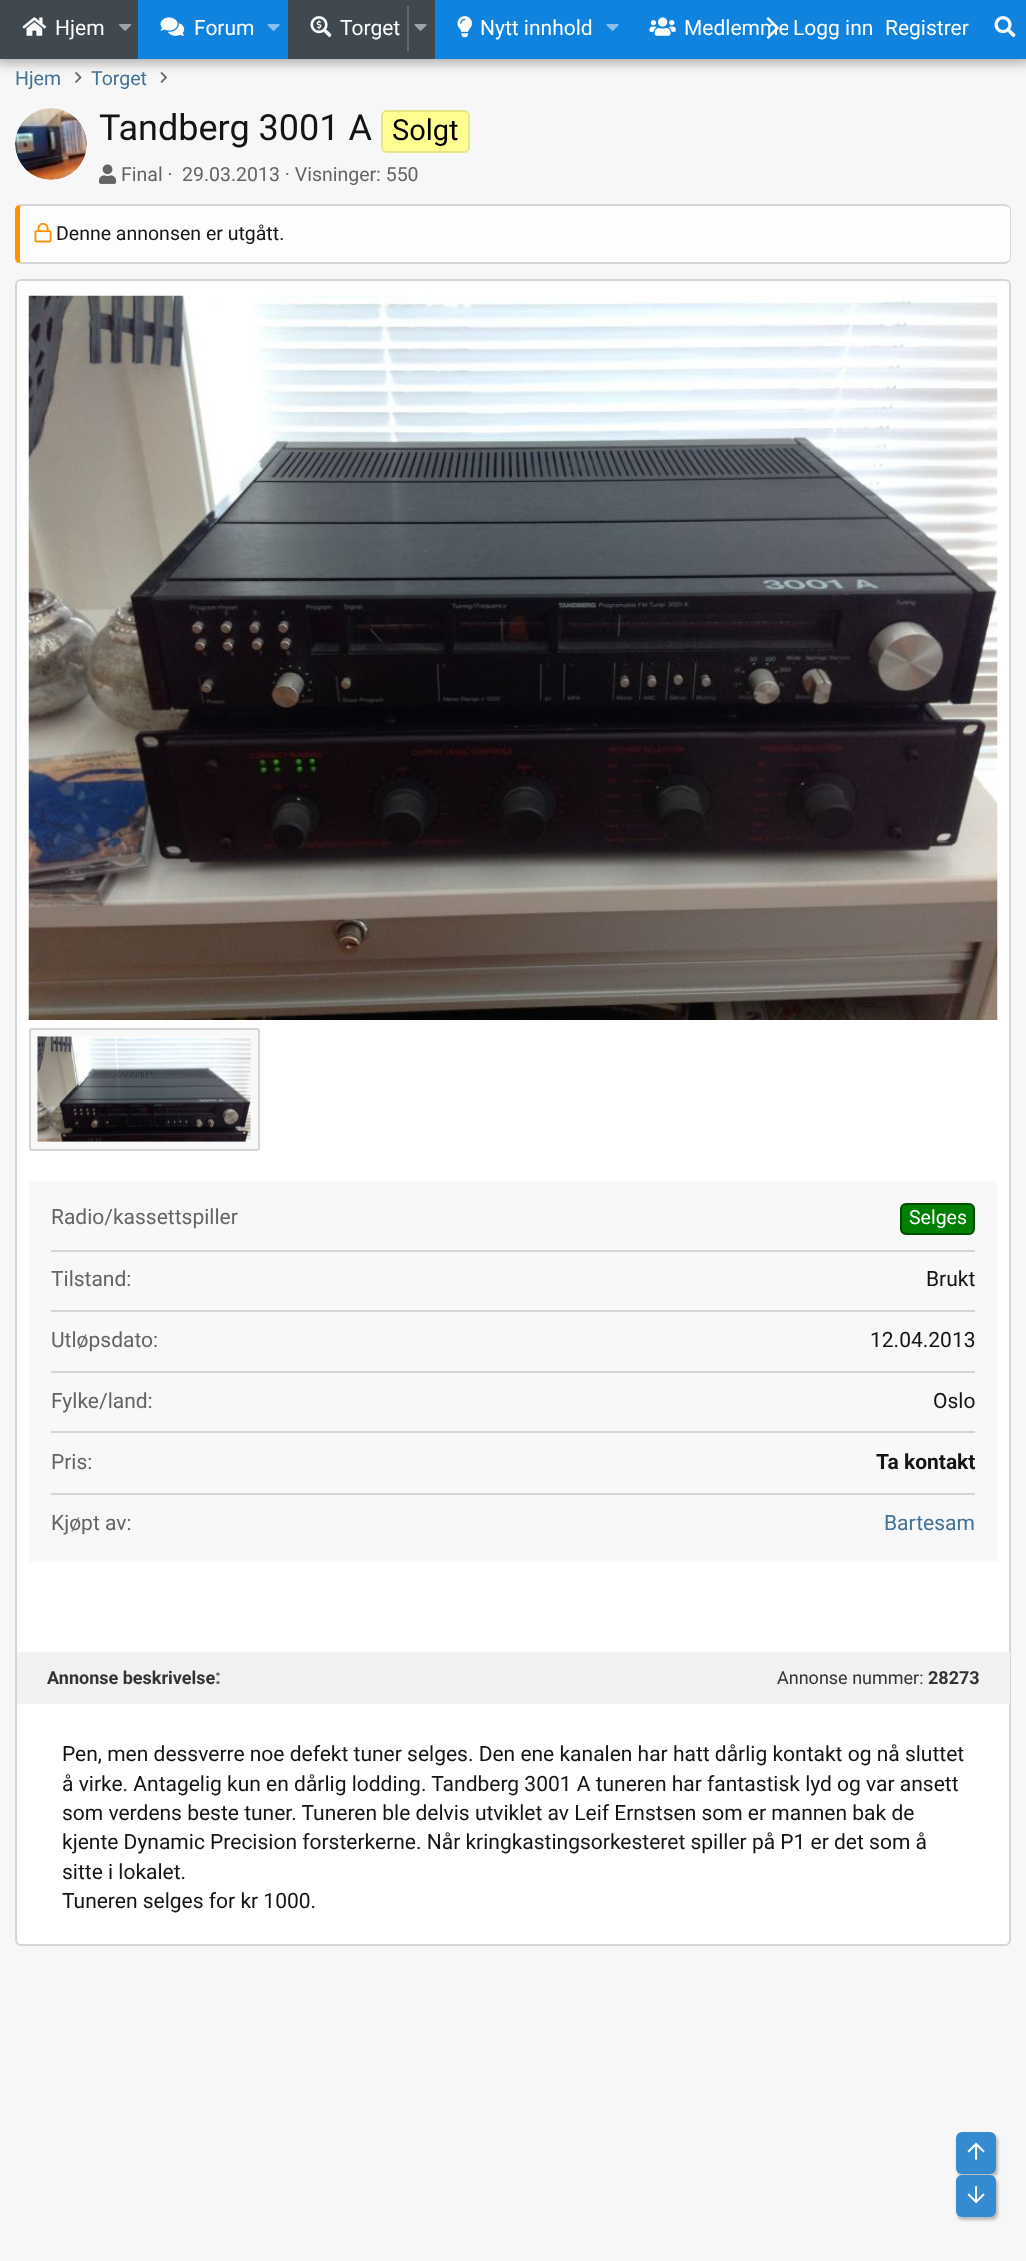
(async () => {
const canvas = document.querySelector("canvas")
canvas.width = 1026
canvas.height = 2261
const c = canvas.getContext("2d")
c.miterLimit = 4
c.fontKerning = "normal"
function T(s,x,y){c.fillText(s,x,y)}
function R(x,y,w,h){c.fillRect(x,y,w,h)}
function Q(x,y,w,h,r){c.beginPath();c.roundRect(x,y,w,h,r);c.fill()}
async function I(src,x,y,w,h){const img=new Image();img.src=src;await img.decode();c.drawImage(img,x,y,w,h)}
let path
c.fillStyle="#f7f7f7"
R(0,0,1026,2261)
await I("11.png",75,72,7,11)
await I("12.png",160,72,8,11)
c.fillStyle="#0000004d"
c.filter="blur(6px)"
c.beginPath()
c.rect(-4,-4,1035,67)
c.fill()
c.filter="none"
c.fillStyle="#1083df"
R(138,0,888,59)
c.save()
c.beginPath()
c.rect(0,0,788,59)
c.clip()
c.font="21px Roboto"
c.fillStyle="#fff"
T("Medlemme",684,35)
c.restore()
await I("1.png",766,17,13,22)
c.fillStyle="#3f494f"
R(0,0,138,59)
await I("2.png",22,17,25,19)
c.font="21px Roboto"
c.fillStyle="#fff"
T("Hjem",55,35)
await I("3.png",119,24,13,7)
await I("4.png",160,17,25,19)
T("Forum",194,35)
await I("5.png",267,24,13,7)
c.fillStyle="#3f494f"
R(288,0,147,59)
await I("6.png",310,16,22,22)
c.fillStyle="#fff"
T("Torget",340,35)
c.fillStyle="#61696e"
R(407,6,2,45)
await I("7.png",414,24,13,7)
await I("8.png",457,16,15,22)
c.fillStyle="#fff"
T("Nytt innhold",480,35)
await I("5.png",606,24,13,7)
await I("9.png",649,17,27,19)
T("Logg inn",793,35)
T("Registrer",885,35)
await I("10.png",994,16,22,22)
c.font="19.5px Roboto"
c.fillStyle="#437197"
T("Hjem",15,85)
T("Torget",91,85)
await I("13.png",15,108,72,72)
c.font="36px Roboto"
c.fillStyle="#141414"
T("Tandberg 3001 A",99,140)
c.fillStyle="#ffff91"
c.beginPath()
c.roundRect(382,111,87,41,5)
c.fill()
c.strokeStyle="#e6e687"
c.lineWidth=2
c.stroke()
c.font="29px Roboto"
c.fillStyle="#000"
T("Solgt",392,140)
await I("14.png",99,164,18,20)
c.font="19.5px Roboto"
c.fillStyle="#646464"
T("Final ·",121,181)
T("29.03.2013 · Visninger: 550",182,181)
c.fillStyle="#fdfdfd"
path = new Path2D("M21 206h984c2 0 5 2 5 4v48c0 2-3 4-5 4h-984c-1 0-1-2-1-4v-48c0-2 0-4 1-4z")
c.fill(path)
c.fillStyle="#d5d5d5"
path = new Path2D("M21 204l-3 1l3 1h984l3 1l1-1c-1-1-3-2-4-2z")
c.fill(path)
path = new Path2D("M1011 258v-48c0-2-1-3-2-4l-1 1c1 1 2 2 2 3v48c0 1-1 2-2 3l1 1c1-1 2-2 2-4z")
c.fill(path)
path = new Path2D("M21 264h984c1 0 3-1 4-2l-1-1l-3 1h-984l-3 1z")
c.fill(path)
c.fillStyle="#ff9000"
path = new Path2D("M21 206l-3-1c-2 1-3 3-3 5v48c0 2 1 4 3 5l3-1c-1 0-1-2-1-4v-48c0-2 0-4 1-4z")
c.fill(path)
await I("15.png",34,222,18,21)
c.fillStyle="#141414"
T("Denne annonsen er utgått.",56,240)
c.fillStyle="#fff"
c.beginPath()
c.roundRect(16,280,994,1665,5)
c.fill()
c.strokeStyle="#d5d5d5"
c.stroke()
await I("16.png",28,295,970,725)
c.fillStyle="#f8f8f8"
c.beginPath()
c.roundRect(30,1029,229,121,2)
c.fill()
c.stroke()
c.fillStyle="#f5f5f5"
R(38,1037,213,105)
await I("17.png",37,1036,214,106)
c.fillStyle="#f8f8f8"
R(29,1181,969,381)
c.fillStyle="#d5d5d5"
R(51,1250,924,2)
c.font="21px Roboto"
c.fillStyle="#646464"
T("Radio/kassettspiller",51,1224)
c.fillStyle="#008000"
c.beginPath()
c.roundRect(901,1204,73,30,5)
c.fill()
c.strokeStyle="#004d00"
c.stroke()
c.font="19.5px Roboto"
c.fillStyle="#fff"
T("Selges",909,1224)
c.fillStyle="#d5d5d5"
R(51,1310,924,2)
c.font="21px Roboto"
c.fillStyle="#646464"
T("Tilstand:",51,1286)
c.fillStyle="#141414"
T("Brukt",926,1286)
c.fillStyle="#d5d5d5"
R(51,1371,924,2)
c.fillStyle="#646464"
T("Utløpsdato:",51,1347)
c.fillStyle="#141414"
T("12.04.2013",870,1347)
c.fillStyle="#d5d5d5"
R(51,1431,924,2)
c.fillStyle="#646464"
T("Fylke/land:",51,1408)
c.fillStyle="#141414"
T("Oslo",933,1408)
c.fillStyle="#d5d5d5"
R(51,1493,924,2)
c.fillStyle="#646464"
T("Pris:",51,1469)
c.font="bold 21px Roboto"
c.fillStyle="#141414"
T("Ta kontakt",876,1469)
c.font="21px Roboto"
c.fillStyle="#646464"
T("Kjøpt av:",51,1530)
c.fillStyle="#437197"
T("Bartesam",884,1530)
c.fillStyle="#f1f1f1"
R(17,1652,993,52)
c.font="bold 18px Roboto"
c.fillStyle="#333"
T("Annonse beskrivelse",47,1684)
c.font="bold 21px Roboto"
c.fillStyle="#646464"
T(":",215,1684)
c.font="18px Roboto"
c.fillStyle="#333"
T("Annonse nummer:",777,1684)
c.font="bold 18px Roboto"
T("28273",928,1684)
c.font="21px Roboto"
c.fillStyle="#141414"
T("Pen, men dessverre noe defekt tuner selges. Den ene kanalen har hatt dårlig kontakt og nå sluttet",62,1761)
T("å virke. Antagelig kun en dårlig lodding. Tandberg 3001 A tuneren har fantastisk lyd og var ansett",62,1791)
T("som verdens beste tuner. Tuneren ble delvis utviklet av Leif Ernstsen som er mannen bak de",62,1820)
T("kjente Dynamic Precision forsterkerne. Når kringkastingsorkesteret spiller på P1 er det som å",62,1849)
T("sitte i lokalet.",62,1879)
T("Tuneren selges for kr 1000.",62,1908)
c.fillStyle="#00000040"
c.filter="blur(1.5px)"
c.beginPath()
c.roundRect(957,2135,41,42,6)
c.fill()
c.filter="none"
c.fillStyle="#368bd0"
Q(956,2132,40,42,6)
await I("18.png",967,2142,18,18)
c.fillStyle="#00000040"
c.filter="blur(1.5px)"
c.beginPath()
c.roundRect(957,2178,41,42,6)
c.fill()
c.filter="none"
c.fillStyle="#368bd0"
Q(956,2175,40,42,6)
await I("19.png",967,2186,18,18)
})()
